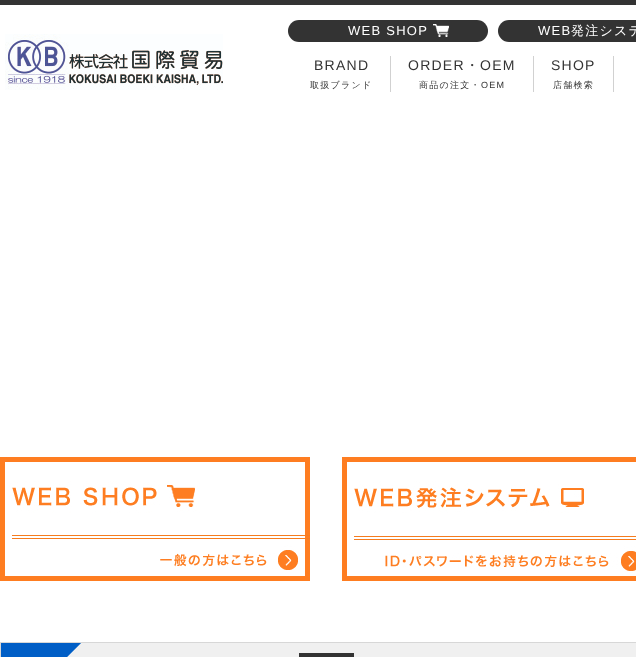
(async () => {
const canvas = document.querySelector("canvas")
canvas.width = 636
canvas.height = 657
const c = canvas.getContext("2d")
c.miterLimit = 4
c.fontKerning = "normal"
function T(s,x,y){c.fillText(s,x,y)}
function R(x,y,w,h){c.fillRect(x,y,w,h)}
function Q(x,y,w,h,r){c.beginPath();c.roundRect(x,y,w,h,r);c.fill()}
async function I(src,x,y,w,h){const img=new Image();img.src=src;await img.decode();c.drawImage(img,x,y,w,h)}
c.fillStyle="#fff"
R(0,0,636,657)
c.fillStyle="#333"
R(0,0,636,5)
Q(288,20,200,22,11)
await I("1.png",433,24,16,13)
c.letterSpacing="1.25px"
c.font="13px Liberation Sans"
c.fillStyle="#fff"
T("WEB SHOP",348,35)
c.fillStyle="#333"
Q(498,20,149,22,11)
c.fillStyle="#fff"
T("WEB",538,35)
c.font="500 13px WenQuanYi Zen Hei"
T("発注システ",571,35)
await I("2.png",5,34,218,56)
c.fillStyle="#d1d1d1"
R(390,56,1,36)
c.font="14px Liberation Sans"
c.fillStyle="#333"
T("BRAND",314,70)
c.font="500 9px WenQuanYi Zen Hei"
T("取扱ブランド",310,88)
c.fillStyle="#d1d1d1"
R(533,56,1,36)
c.font="14px Liberation Sans"
c.fillStyle="#333"
T("ORDER",408,70)
c.font="500 14px WenQuanYi Zen Hei"
T("・",465,70)
c.font="14px Liberation Sans"
T("OEM",480,70)
c.font="500 9px WenQuanYi Zen Hei"
T("商品の注文・",419,88)
c.font="9px Liberation Sans"
T("OEM",481,88)
c.fillStyle="#d1d1d1"
R(613,56,1,36)
c.font="14px Liberation Sans"
c.fillStyle="#333"
T("SHOP",551,70)
c.font="500 9px WenQuanYi Zen Hei"
T("店舗検索",553,88)
await I("3.png",0,457,310,124)
await I("4.png",342,457,294,124)
c.fillStyle="#f0f0f0"
R(67,643,569,14)
await I("5.png",1,643,80,14)
c.strokeStyle="#d7d7d7"
c.strokeRect(.5,642.5,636,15)
c.fillStyle="#333"
R(299,653,55,4)
})()
